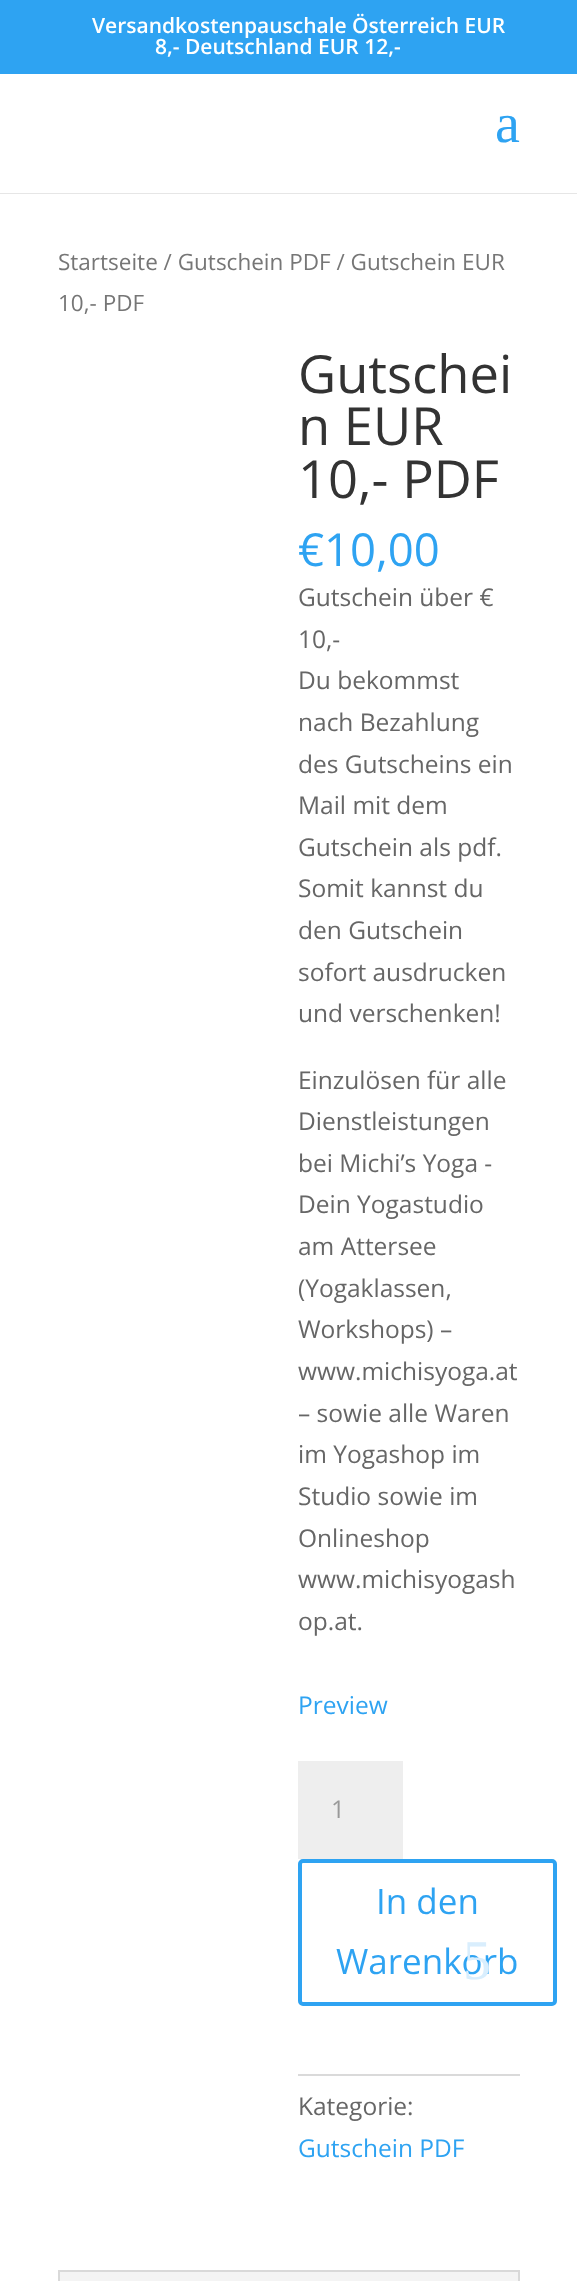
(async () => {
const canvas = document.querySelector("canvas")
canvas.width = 577
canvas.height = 2281
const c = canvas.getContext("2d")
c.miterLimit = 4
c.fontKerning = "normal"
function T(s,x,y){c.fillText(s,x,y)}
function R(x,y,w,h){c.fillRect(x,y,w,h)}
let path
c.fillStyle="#fff"
R(0,0,577,2281)
c.fillStyle="#2ea3f2"
R(0,0,577,74)
c.font="600 21px Open Sans"
c.fillStyle="#fff"
T("Versandkostenpauschale Österreich EUR",92,33)
T("8,- Deutschland EUR 12,-",155,54)
c.fillStyle="#e6e6e6"
path = new Path2D("M0 192v2h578v-140v138z")
c.fill(path)
c.fillStyle="#fff"
R(0,192,577,1)
c.font="56px Liberation Serif"
c.fillStyle="#2ea3f2"
T("a",495,142)
c.font="22.5px Open Sans"
c.fillStyle="#767676"
T("Startseite / Gutschein PDF / Gutschein EUR",58,270)
T("10,- PDF",58,311)
c.font="52.5px Open Sans"
c.fillStyle="#333"
T("Gutschei",298,393)
T("n EUR",298,445)
T("10,- PDF",298,498)
c.font="45.5px Open Sans"
c.fillStyle="#2ea3f2"
T("€10,00",298,566)
c.font="24.5px Open Sans"
c.fillStyle="#666"
T("Gutschein über €",298,606)
T("10,-",298,648)
T("Du bekommst",298,689)
T("nach Bezahlung",298,731)
T("des Gutscheins ein",298,773)
T("Mail mit dem",298,814)
T("Gutschein als pdf.",298,856)
T("Somit kannst du",298,897)
T("den Gutschein",298,939)
T("sofort ausdrucken",298,981)
T("und verschenken!",298,1022)
T("Einzulösen für alle",298,1089)
T("Dienstleistungen",298,1130)
T("bei Michi’s Yoga -",298,1172)
T("Dein Yogastudio",298,1213)
T("am Attersee",298,1255)
T("(Yogaklassen,",298,1297)
T("Workshops) –",298,1338)
T("www.michisyoga.at",298,1380)
T("– sowie alle Waren",298,1422)
T("im Yogashop im",298,1463)
T("Studio sowie im",298,1505)
T("Onlineshop",298,1547)
T("www.michisyogash",298,1588)
T("op.at.",298,1630)
c.fillStyle="#2ea3f2"
T("Preview",298,1714)
c.fillStyle="#eee"
R(298,1761,105,98)
c.fillStyle="#999"
T("1",331,1818)
c.beginPath()
c.roundRect(300,1861,255,143,3)
c.strokeStyle="#2ea3f2"
c.lineWidth=4
c.stroke()
c.font="35px Open Sans"
c.fillStyle="#2ea3f2"
T("In den",376,1914)
T("Warenkorb",336,1974)
c.font="56px Liberation Serif"
c.fillStyle="#d9eefd"
T("5",463,1979)
c.fillStyle="#dadada"
R(298,2074,222,2)
c.font="24.5px Open Sans"
c.fillStyle="#666"
T("Kategorie:",298,2115)
c.fillStyle="#2ea3f2"
T("Gutschein PDF",298,2157)
c.strokeStyle="#d9d9d9"
c.lineWidth=2
c.strokeRect(59,2271,460,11)
c.fillStyle="#f4f4f4"
R(60,2272,458,9)
})()
